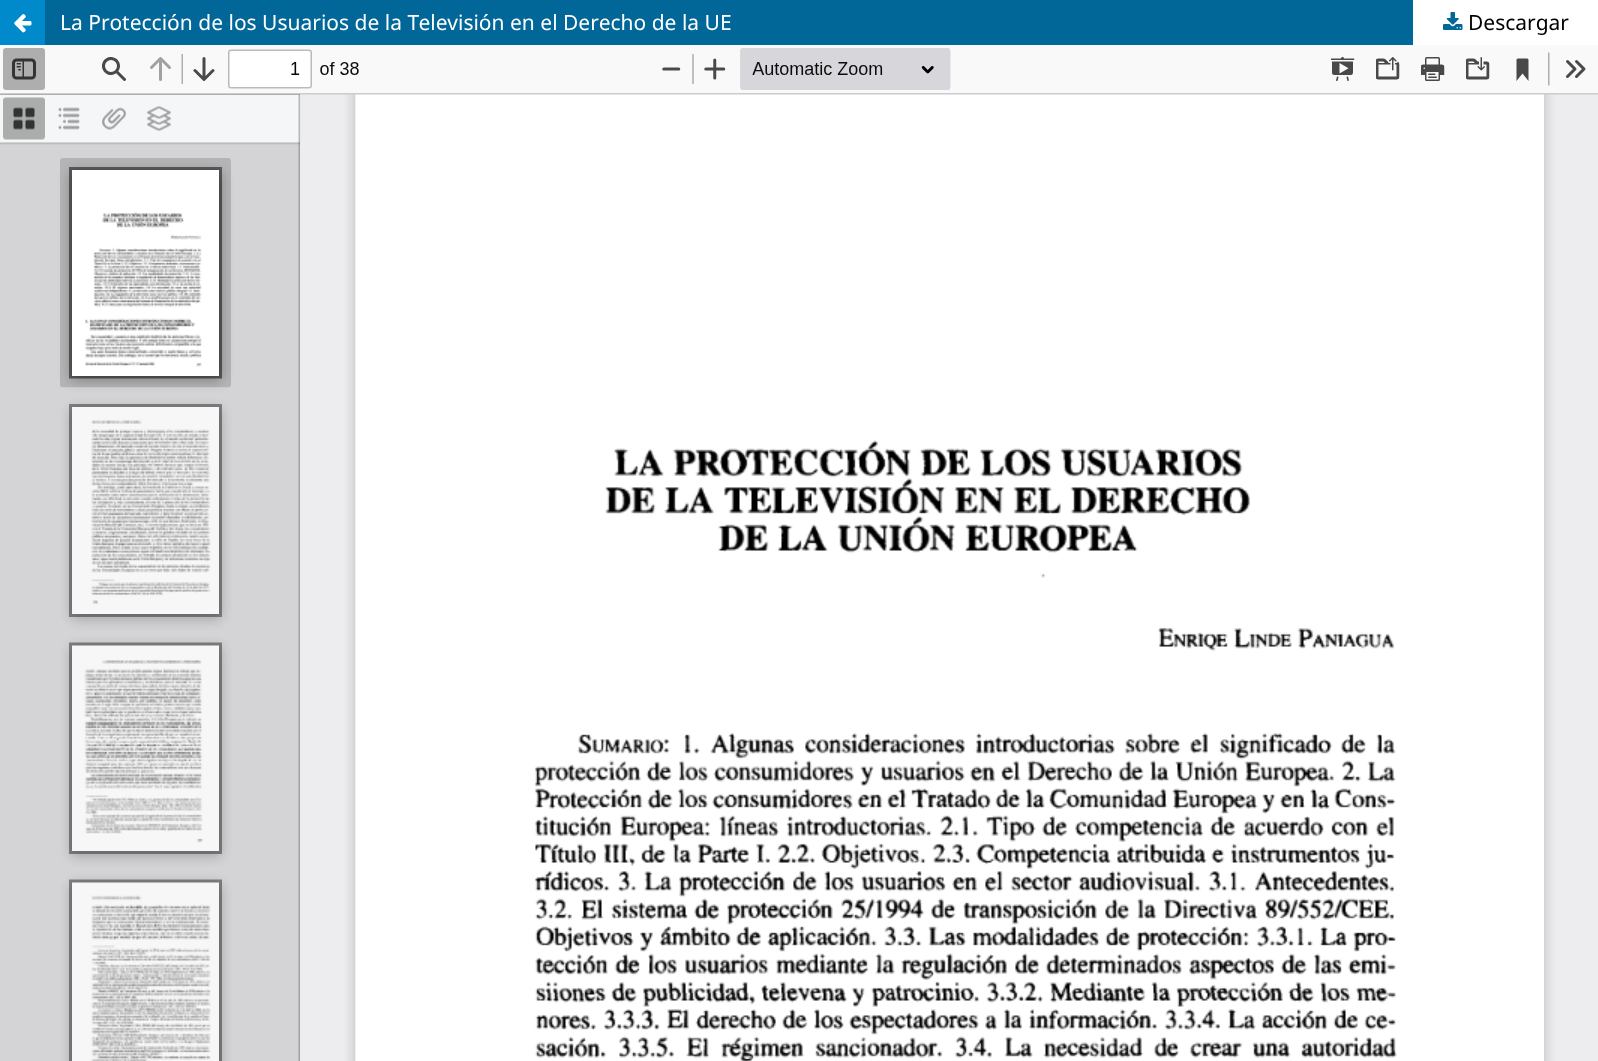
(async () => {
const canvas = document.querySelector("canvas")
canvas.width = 1598
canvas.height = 1061
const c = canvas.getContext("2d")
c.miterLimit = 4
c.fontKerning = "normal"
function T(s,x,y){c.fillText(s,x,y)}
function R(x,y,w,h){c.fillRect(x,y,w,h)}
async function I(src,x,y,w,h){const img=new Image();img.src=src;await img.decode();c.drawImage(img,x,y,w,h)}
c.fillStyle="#fff"
R(0,0,1598,1061)
c.fillStyle="#006798"
R(45,0,1368,45)
c.fillStyle="#008acb"
R(0,0,45,45)
await I("1.png",14,14,18,19)
c.font="21px Noto Sans"
c.fillStyle="#fff"
T("La Protección de los Usuarios de la Televisión en el Derecho de la UE",60,30)
await I("2.png",1443,12,20,18)
c.fillStyle="#000"
T("Descargar",1468,30)
await I("3.png",0,45,1598,1016)
})()
